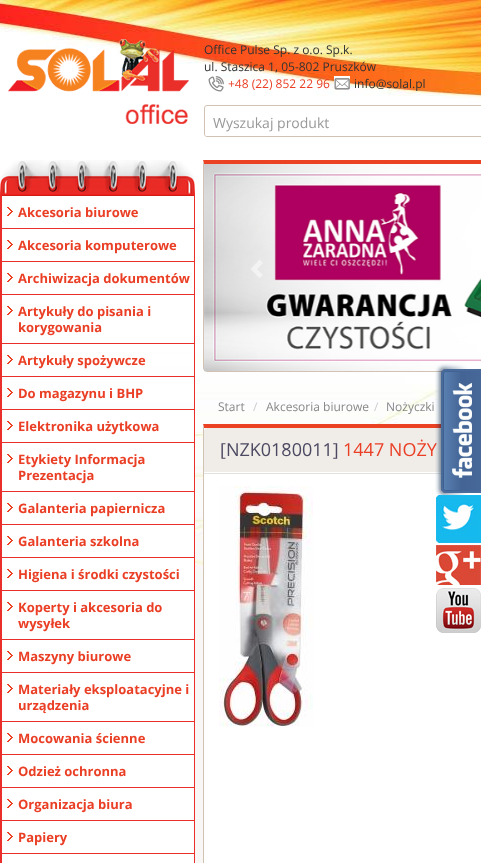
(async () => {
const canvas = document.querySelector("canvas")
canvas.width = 481
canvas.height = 863
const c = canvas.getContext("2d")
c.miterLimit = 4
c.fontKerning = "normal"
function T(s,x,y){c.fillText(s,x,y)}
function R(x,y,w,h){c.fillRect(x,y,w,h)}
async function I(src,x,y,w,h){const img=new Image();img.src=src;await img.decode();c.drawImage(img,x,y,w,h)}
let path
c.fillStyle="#f8f7f5"
R(0,0,481,863)
await I("1.png",0,146,481,479)
await I("2.png",0,0,481,146)
await I("3.png",8,39,181,85)
c.font="12px Open Sans"
c.fillStyle="#333"
T("Office Pulse Sp. z o.o. Sp.k.",204,54)
T("ul. Staszica 1, 05-802 Pruszków",204,71)
await I("4.png",208,76,16,16)
c.fillStyle="#ea3e25"
T("+48 (22) 852 22 96",228,88)
await I("5.png",334,76,16,14)
c.fillStyle="#333"
T("info@solal.pl",354,88)
c.beginPath()
c.roundRect(204.5,105.5,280,31,2.5)
c.strokeStyle="#d1c3b3"
c.stroke()
c.save()
c.beginPath()
c.roundRect(205,106,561,30,2)
c.clip()
c.fillStyle="#fff"
path = new Path2D("M209 106h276v32h-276c-2 0-4-2-4-4v-24c0-2 2-4 4-4z")
c.fill(path)
c.restore()
c.font="14px Open Sans"
c.fillStyle="#999"
T("Wyszukaj produkt",213,128)
await I("6.png",0,160,195,36)
c.fillStyle="#ea2e29"
R(0,196,1,667)
await I("7.png",7,207,6,9)
R(194,196,1,667)
R(1,228,194,1)
R(1,196,1,33)
c.font="bold 13px Open Sans"
c.fillStyle="#ea3e25"
T("Akcesoria biurowe",18,217)
await I("7.png",7,240,6,9)
c.fillStyle="#ea2e29"
R(1,261,194,1)
R(1,229,1,33)
c.fillStyle="#ea3e25"
T("Akcesoria komputerowe",18,250)
await I("7.png",7,273,6,9)
c.fillStyle="#ea2e29"
R(1,294,194,1)
R(1,262,1,33)
c.fillStyle="#ea3e25"
T("Archiwizacja dokumentów",18,283)
await I("7.png",7,306,6,9)
c.fillStyle="#ea2e29"
R(1,343,194,1)
R(1,295,1,49)
c.fillStyle="#ea3e25"
T("Artykuły do pisania i",18,316)
T("korygowania",18,332)
c.fillStyle="#fff"
R(2,354,192,12)
await I("7.png",7,355,6,9)
c.fillStyle="#ea2e29"
R(1,376,194,1)
R(1,344,1,33)
c.fillStyle="#ea3e25"
T("Artykuły spożywcze",18,365)
c.fillStyle="#fff"
R(2,384,192,18)
await I("7.png",7,388,6,9)
c.fillStyle="#ea2e29"
R(1,409,194,1)
R(1,377,1,33)
c.fillStyle="#ea3e25"
T("Do magazynu i BHP",18,398)
c.fillStyle="#fff"
R(2,410,192,32)
await I("7.png",7,421,6,9)
c.fillStyle="#ea2e29"
R(1,442,194,1)
R(1,410,1,33)
c.fillStyle="#ea3e25"
T("Elektronika użytkowa",18,431)
c.fillStyle="#fff"
R(2,443,192,48)
await I("7.png",7,454,6,9)
c.fillStyle="#ea2e29"
R(1,491,194,1)
R(1,443,1,49)
c.fillStyle="#ea3e25"
T("Etykiety Informacja",18,464)
T("Prezentacja",18,480)
c.fillStyle="#fff"
R(2,492,192,32)
await I("7.png",7,503,6,9)
c.fillStyle="#ea2e29"
R(1,524,194,1)
R(1,492,1,33)
c.fillStyle="#ea3e25"
T("Galanteria papiernicza",18,513)
c.fillStyle="#fff"
R(2,525,192,32)
await I("7.png",7,536,6,9)
c.fillStyle="#ea2e29"
R(1,557,194,1)
R(1,525,1,33)
c.fillStyle="#ea3e25"
T("Galanteria szkolna",18,546)
c.fillStyle="#fff"
R(2,558,192,32)
await I("7.png",7,569,6,9)
c.fillStyle="#ea2e29"
R(1,590,194,1)
R(1,558,1,33)
c.fillStyle="#ea3e25"
T("Higiena i środki czystości",18,579)
c.fillStyle="#fff"
R(2,591,192,48)
await I("7.png",7,602,6,9)
c.fillStyle="#ea2e29"
R(1,639,194,1)
R(1,591,1,49)
c.fillStyle="#ea3e25"
T("Koperty i akcesoria do",18,612)
T("wysyłek",18,628)
c.fillStyle="#fff"
R(2,640,192,32)
await I("7.png",7,651,6,9)
c.fillStyle="#ea2e29"
R(1,672,194,1)
R(1,640,1,33)
c.fillStyle="#ea3e25"
T("Maszyny biurowe",18,661)
c.fillStyle="#fff"
R(2,673,192,48)
await I("7.png",7,684,6,9)
c.fillStyle="#ea2e29"
R(1,721,194,1)
R(1,673,1,49)
c.fillStyle="#ea3e25"
T("Materiały eksploatacyjne i",18,694)
T("urządzenia",18,710)
c.fillStyle="#fff"
R(2,722,192,32)
await I("7.png",7,733,6,9)
c.fillStyle="#ea2e29"
R(1,754,194,1)
R(1,722,1,33)
c.fillStyle="#ea3e25"
T("Mocowania ścienne",18,743)
c.fillStyle="#fff"
R(2,755,192,32)
await I("7.png",7,766,6,9)
c.fillStyle="#ea2e29"
R(1,787,194,1)
R(1,755,1,33)
c.fillStyle="#ea3e25"
T("Odzież ochronna",18,776)
c.fillStyle="#fff"
R(2,788,192,32)
await I("7.png",7,799,6,9)
c.fillStyle="#ea2e29"
R(1,820,194,1)
R(1,788,1,33)
c.fillStyle="#ea3e25"
T("Organizacja biura",18,809)
c.fillStyle="#fff"
R(2,821,192,32)
await I("7.png",7,832,6,9)
c.fillStyle="#ea2e29"
R(1,853,194,1)
R(1,821,1,42)
c.fillStyle="#ea3e25"
T("Papiery",18,842)
c.fillStyle="#fff"
R(2,854,192,9)
c.fillStyle="#eb4224"
path = new Path2D("M203 160l1 4h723l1-4z")
c.fill(path)
c.fillStyle="#d1c3b3"
path = new Path2D("M207 372h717l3-1l-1-1l-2 1h-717l-2-1l-1 1z")
c.fill(path)
path = new Path2D("M204 164l-1-4v208c0 1 1 2 1 3l1-1l-1-2z")
c.fill(path)
await I("8.png",204,164,277,207)
c.fillStyle="#ffffff80"
path = new Path2D("M263 263l-6 6l6 6l-3.5 3l-9-9l9-9.5z")
c.fill(path)
c.font="12px Open Sans"
c.fillStyle="#888"
T("Start",218,411)
c.fillStyle="#ccc"
T("/",253,411)
c.fillStyle="#888"
T("Akcesoria biurowe",266,411)
c.fillStyle="#ccc"
T("/",374,411)
c.fillStyle="#888"
T("Nożyczki",386,411)
c.fillStyle="#fff"
R(204,428,277,435)
c.fillStyle="#eb4224"
path = new Path2D("M203 424l1 4h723l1-4z")
c.fill(path)
c.fillStyle="#d1c3b3"
path = new Path2D("M204 428l-1-4v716l1 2l1-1l-1-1z")
c.fill(path)
c.fillStyle="#f0ede8"
path = new Path2D("M207 428h274c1.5 0 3 1.5 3 3v42h-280v-42c0-1.5 1.5-3 3-3z")
c.fill(path)
c.fillStyle="#fff"
R(204,472,237,1)
c.font="18px Open Sans"
c.fillStyle="#4d4962"
T("[NZK0180011]",220,456)
c.fillStyle="#ea3e25"
T("1447 NOŻY",343,456)
c.fillStyle="#e3e2de"
R(204,473,237,1)
await I("9.png",219,486,94,241)
await I("10.png",435,363,46,132)
await I("11.png",436,495,45,48)
await I("12.png",436,545,45,40)
await I("13.png",436,588,45,45)
})()
